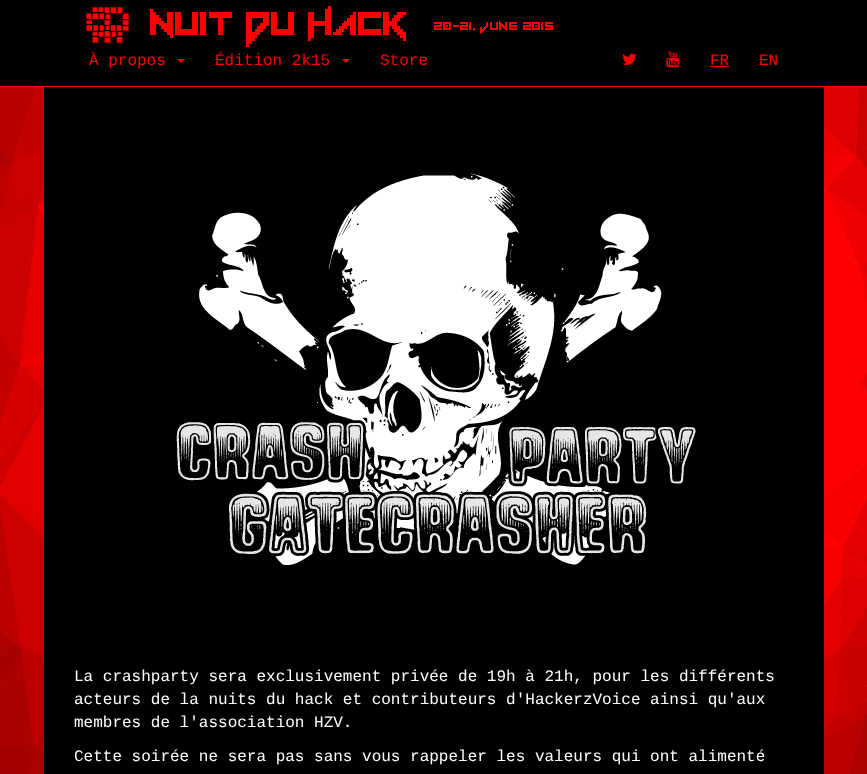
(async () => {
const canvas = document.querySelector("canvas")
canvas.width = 867
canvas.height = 774
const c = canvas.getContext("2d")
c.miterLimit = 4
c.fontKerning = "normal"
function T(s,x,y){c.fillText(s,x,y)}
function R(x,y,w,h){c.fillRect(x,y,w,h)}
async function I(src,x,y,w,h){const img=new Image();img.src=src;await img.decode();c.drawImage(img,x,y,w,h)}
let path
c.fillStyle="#fff"
R(0,0,867,774)
c.fillStyle="#000"
R(0,0,867,86)
c.fillStyle="#f00"
R(0,86,867,1)
await I("1.png",85,6,468,41)
c.font="16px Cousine"
T("À propos",89,65)
path = new Path2D("M177 59h8l-4 4z")
c.fill(path)
T("Édition 2k15",215,65)
path = new Path2D("M342 59h8l-4 4z")
c.fill(path)
T("Store",380,65)
await I("2.png",622,53,15,12)
await I("3.png",666,51,14,17)
T("FR",710,65)
R(710,66,19,1)
T("EN",759,65)
await I("4.png",0,87,867,687)
c.fillStyle="#000"
R(44,87,780,687)
await I("5.png",176,173,520,392)
c.fillStyle="#fff"
T("La crashparty sera exclusivement privée de 19h à 21h, pour les différents",74,681)
T("acteurs de la nuits du hack et contributeurs d'HackerzVoice ainsi qu'aux",74,704)
T("membres de l'association HZV.",74,727)
T("Cette soirée ne sera pas sans vous rappeler les valeurs qui ont alimenté",74,761)
})()
